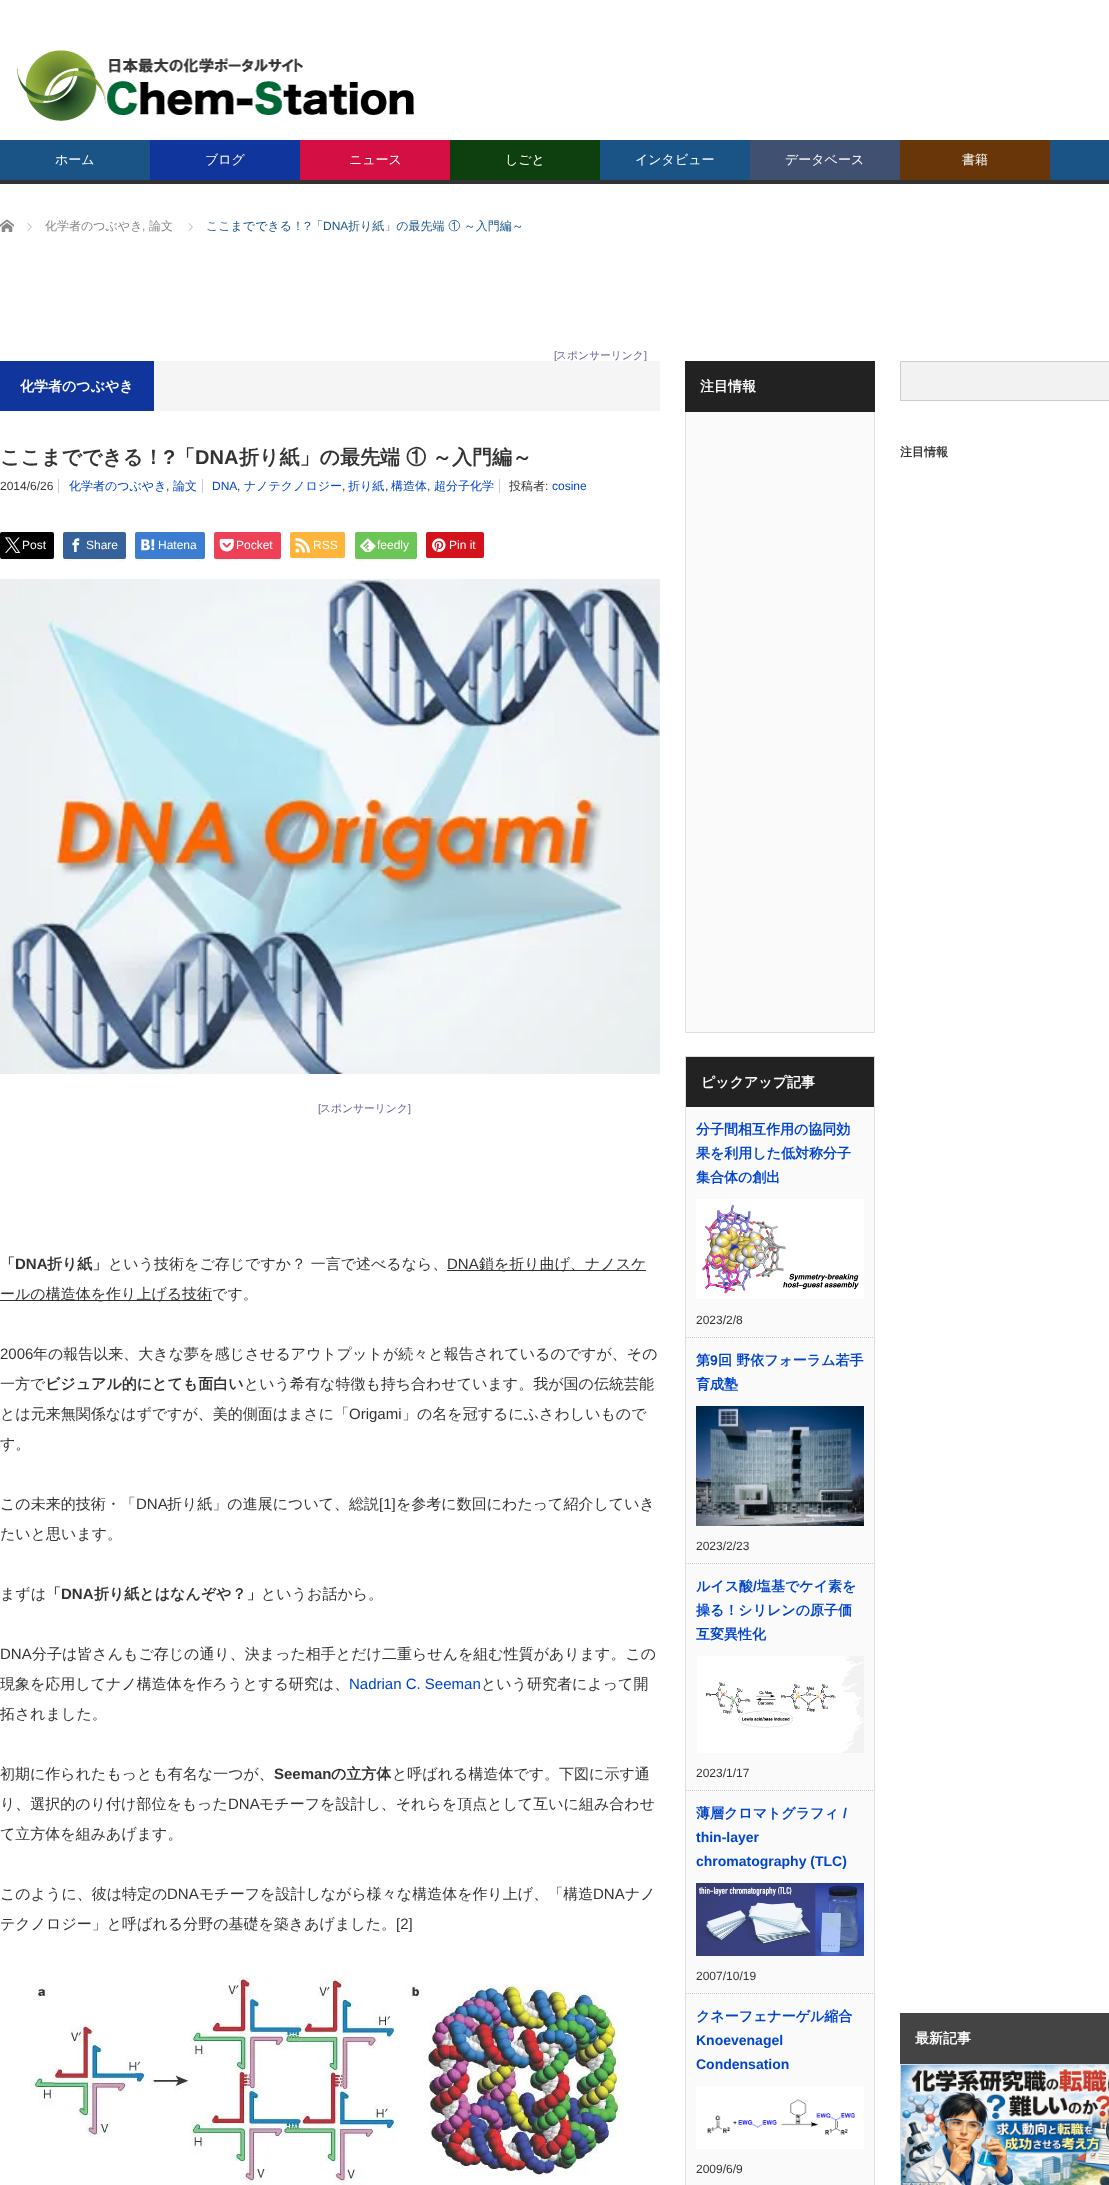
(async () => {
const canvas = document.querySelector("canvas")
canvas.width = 1109
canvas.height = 2185
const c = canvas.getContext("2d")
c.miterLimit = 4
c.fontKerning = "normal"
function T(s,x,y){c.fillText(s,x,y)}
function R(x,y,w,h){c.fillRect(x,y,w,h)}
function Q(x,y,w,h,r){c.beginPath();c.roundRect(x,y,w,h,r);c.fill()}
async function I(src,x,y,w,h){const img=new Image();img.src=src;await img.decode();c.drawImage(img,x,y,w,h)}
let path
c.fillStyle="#fff"
R(0,0,1109,2185)
c.fillStyle="#333"
R(0,180,1109,4)
await I("1.png",17,50,397,71)
c.fillStyle="#1a5487"
R(0,140,150,40)
c.font="500 13px WenQuanYi Zen Hei"
c.fillStyle="#fff"
T("ホーム",55,164)
c.fillStyle="#10369e"
R(150,140,150,40)
c.fillStyle="#fff"
T("ブログ",205,164)
c.fillStyle="#d40f43"
R(300,140,150,40)
c.fillStyle="#fff"
T("ニュース",349,164)
c.fillStyle="#0e400f"
R(450,140,150,40)
c.fillStyle="#fff"
T("しごと",505,164)
c.fillStyle="#1a5487"
R(600,140,150,40)
c.fillStyle="#fff"
T("インタビュー",635,164)
c.fillStyle="#405070"
R(750,140,150,40)
c.fillStyle="#fff"
T("データベース",785,164)
c.fillStyle="#693609"
R(900,140,150,40)
c.fillStyle="#fff"
T("書籍",962,164)
c.fillStyle="#1a5487"
R(1050,140,59,40)
await I("2.png",0,219,14,13)
await I("3.png",27,223,5,8)
c.font="500 12px WenQuanYi Zen Hei"
c.fillStyle="#888"
T("化学者のつぶやき",45,230)
c.font="12px Liberation Sans"
T(",",142,230)
c.font="500 12px WenQuanYi Zen Hei"
T("論文",149,230)
await I("3.png",188,223,5,8)
c.fillStyle="#1a5487"
T("ここまでできる！",206,230)
c.font="12px Liberation Sans"
T("?",304,230)
c.font="500 12px WenQuanYi Zen Hei"
T("「",311,230)
c.font="12px Liberation Sans"
T("DNA",323,230)
c.font="500 12px WenQuanYi Zen Hei"
T("折り紙」の最先端 ① ～入門編～",348,230)
c.font="10.75px Liberation Sans"
c.fillStyle="#669"
T("[",554,359)
c.font="500 10.75px WenQuanYi Zen Hei"
T("スポンサーリンク",556,359)
c.font="10.75px Liberation Sans"
T("]",644,359)
c.fillStyle="#f5f5f5"
R(154,361,506,50)
c.fillStyle="#10369e"
R(0,361,154,50)
c.font="bold 14px WenQuanYi Zen Hei"
c.fillStyle="#fff"
T("化学者のつぶやき",20,391)
c.font="bold 20px WenQuanYi Zen Hei"
c.fillStyle="#333"
T("ここまでできる！",0,464)
c.font="bold 20px Liberation Sans"
T("?",163,464)
c.font="bold 20px WenQuanYi Zen Hei"
T("「",175,464)
c.font="bold 20px Liberation Sans"
T("DNA",195,464)
c.font="bold 20px WenQuanYi Zen Hei"
T("折り紙」の最先端 ① ～入門編～",239,464)
c.font="12px Liberation Sans"
T("2014/6/26",0,490)
c.fillStyle="#ccc"
R(58,479,1,14)
c.font="500 12px WenQuanYi Zen Hei"
c.fillStyle="#04c"
T("化学者のつぶやき",69,490)
c.font="12px Liberation Sans"
c.fillStyle="#333"
T(",",166,490)
c.font="500 12px WenQuanYi Zen Hei"
c.fillStyle="#04c"
T("論文",173,490)
c.fillStyle="#ccc"
R(202,479,1,14)
c.font="12px Liberation Sans"
c.fillStyle="#04c"
T("DNA",212,490)
c.fillStyle="#333"
T(",",237,490)
c.font="500 12px WenQuanYi Zen Hei"
c.fillStyle="#04c"
T("ナノテクノロジー",244,490)
c.font="12px Liberation Sans"
c.fillStyle="#333"
T(",",342,490)
c.font="500 12px WenQuanYi Zen Hei"
c.fillStyle="#04c"
T("折り紙",348,490)
c.font="12px Liberation Sans"
c.fillStyle="#333"
T(",",385,490)
c.font="500 12px WenQuanYi Zen Hei"
c.fillStyle="#04c"
T("構造体",391,490)
c.font="12px Liberation Sans"
c.fillStyle="#333"
T(",",427,490)
c.font="500 12px WenQuanYi Zen Hei"
c.fillStyle="#04c"
T("超分子化学",434,490)
c.fillStyle="#ccc"
R(499,479,1,14)
c.fillStyle="#333"
T("投稿者",509,490)
c.font="12px Liberation Sans"
T(":",545,490)
c.fillStyle="#04c"
T("cosine",552,490)
c.fillStyle="#f7f7f7"
path = new Path2D("M0 557c0 5 6 3 10 3h34c4 0 10 2 10-3l-1 2h-52z")
c.fill(path)
c.fillStyle="#000"
Q(0,532,54,27,2)
await I("4.png",5,537,16,16)
c.fillStyle="#fff"
T("Post",22,549)
c.fillStyle="#f7f7f7"
path = new Path2D("M63 557c0 6 8 3 12 3h39c4 0 12 3 12-3l-1 2h-50c-4 0-12 2-12-2z")
c.fill(path)
c.fillStyle="#35629a"
Q(63,532,63,27,2)
await I("5.png",72,538,8,14)
c.fillStyle="#fff"
T("Share",86,549)
c.fillStyle="#f7f7f7"
path = new Path2D("M135 557c0 6 9 3 13 3h44c4 0 13 3 13-3c0 1-1 2-2 2h-67z")
c.fill(path)
c.fillStyle="#3c7dd1"
Q(135,532,70,27,2)
await I("6.png",141,539,14,12)
c.fillStyle="#fff"
T("Hatena",158,549)
c.fillStyle="#f7f7f7"
path = new Path2D("M214 557c0 6 9 3 12 3h42c4 0 13 3 13-3l-1 2h-64l-2-1z")
c.fill(path)
c.fillStyle="#ee4056"
Q(214,532,67,27,2)
await I("7.png",219,538,15,14)
c.fillStyle="#fff"
T("Pocket",236,549)
c.fillStyle="#f7f7f7"
path = new Path2D("M290 556c0 5 7 3 10 3h34c4 0 11 2 11-3l-1 2h-53z")
c.fill(path)
c.fillStyle="#ffb53c"
Q(290,532,55,26,2)
await I("8.png",295,537,16,16)
c.fillStyle="#fff"
T("RSS",313,549)
c.fillStyle="#f7f7f7"
path = new Path2D("M355 557c0 6 8 3 12 3h38c4 0 12 3 12-3l-1 2h-49c-4 0-12 2-12-2z")
c.fill(path)
c.fillStyle="#6cc655"
Q(355,532,62,27,2)
await I("9.png",360,538,16,14)
c.fillStyle="#fff"
T("feedly",377,549)
c.fillStyle="#f7f7f7"
path = new Path2D("M426 556c0 5 7 3 11 3h36c4 0 11 2 11-3l-1 2h-56z")
c.fill(path)
c.fillStyle="#d4121c"
Q(426,532,58,26,2)
await I("10.png",432,538,14,14)
c.fillStyle="#fff"
T("Pin it",449,549)
await I("11.png",0,579,660,495)
c.font="10.75px Liberation Sans"
c.fillStyle="#669"
T("[",318,1112)
c.font="500 10.75px WenQuanYi Zen Hei"
T("スポンサーリンク",320,1112)
c.font="10.75px Liberation Sans"
T("]",408,1112)
c.font="bold 15px WenQuanYi Zen Hei"
c.fillStyle="#333"
T("「",0,1269)
c.font="bold 15px Liberation Sans"
T("DNA",15,1269)
c.font="bold 15px WenQuanYi Zen Hei"
T("折り紙」",47,1269)
c.font="500 15px WenQuanYi Zen Hei"
T("という技術をご存じですか？ 一言で述べるなら、",108,1269)
c.font="15px Liberation Sans"
T("DNA",447,1269)
R(447,1270,199,1)
c.font="500 15px WenQuanYi Zen Hei"
T("鎖を折り曲げ、ナノスケ",479,1269)
R(0,1300,212,1)
T("ールの構造体を作り上げる技術です。",0,1299)
c.font="15px Liberation Sans"
T("2006",0,1359)
c.font="500 15px WenQuanYi Zen Hei"
T("年の報告以来、大きな夢を感じさせるアウトプットが続々と報告されているのですが、その",33,1359)
T("一方で",0,1389)
c.font="bold 15px WenQuanYi Zen Hei"
T("ビジュアル的にとても面白い",45,1389)
c.font="500 15px WenQuanYi Zen Hei"
T("という希有な特徴も持ち合わせています。我が国の伝統芸能",244,1389)
T("とは元来無関係なはずですが、美的側面はまさに「",0,1419)
c.font="15px Liberation Sans"
T("Origami",349,1419)
c.font="500 15px WenQuanYi Zen Hei"
T("」の名を冠するにふさわしいもので",402,1419)
T("す。",0,1449)
T("この未来的技術・「",0,1509)
c.font="15px Liberation Sans"
T("DNA",136,1509)
c.font="500 15px WenQuanYi Zen Hei"
T("折り紙」の進展について、総説",167,1509)
c.font="15px Liberation Sans"
T("[1]",379,1509)
c.font="500 15px WenQuanYi Zen Hei"
T("を参考に数回にわたって紹介していき",396,1509)
T("たいと思います。",0,1539)
T("まずは",0,1599)
c.font="bold 15px WenQuanYi Zen Hei"
T("「",46,1599)
c.font="bold 15px Liberation Sans"
T("DNA",61,1599)
c.font="bold 15px WenQuanYi Zen Hei"
T("折り紙とはなんぞや？」",94,1599)
c.font="500 15px WenQuanYi Zen Hei"
T("というお話から。",261,1599)
c.font="15px Liberation Sans"
T("DNA",0,1659)
c.font="500 15px WenQuanYi Zen Hei"
T("分子は皆さんもご存じの通り、決まった相手とだけ二重らせんを組む性質があります。この",32,1659)
T("現象を応用してナノ構造体を作ろうとする研究は、",0,1689)
c.font="15px Liberation Sans"
c.fillStyle="#04c"
T("Nadrian C. Seeman",349,1689)
c.font="500 15px WenQuanYi Zen Hei"
c.fillStyle="#333"
T("という研究者によって開",481,1689)
T("拓されました。",0,1719)
T("初期に作られたもっとも有名な一つが、",0,1779)
c.font="bold 15px Liberation Sans"
T("Seeman",274,1779)
c.font="bold 15px WenQuanYi Zen Hei"
T("の立方体",331,1779)
c.font="500 15px WenQuanYi Zen Hei"
T("と呼ばれる構造体です。下図に示す通",392,1779)
T("り、選択的のり付け部位をもった",0,1809)
c.font="15px Liberation Sans"
T("DNA",228,1809)
c.font="500 15px WenQuanYi Zen Hei"
T("モチーフを設計し、それらを頂点として互いに組み合わせ",259,1809)
T("て立方体を組みあげます。",0,1839)
T("このように、彼は特定の",0,1899)
c.font="15px Liberation Sans"
T("DNA",167,1899)
c.font="500 15px WenQuanYi Zen Hei"
T("モチーフを設計しながら様々な構造体を作り上げ、「構造",199,1899)
c.font="15px Liberation Sans"
T("DNA",593,1899)
c.font="500 15px WenQuanYi Zen Hei"
T("ナノ",625,1899)
T("テクノロジー」と呼ばれる分野の基礎を築きあげました。",0,1929)
c.font="15px Liberation Sans"
T("[2]",396,1929)
await I("12.png",30,1977,592,208)
c.fillStyle="#fafafa"
R(686,412,188,620)
c.strokeStyle="#ddd"
c.strokeRect(685.5,361.5,189,671)
c.fillStyle="#222"
R(685,361,190,51)
c.font="bold 14px WenQuanYi Zen Hei"
c.fillStyle="#fff"
T("注目情報",700,391)
c.fillStyle="#fafafa"
R(686,1107,188,1078)
c.strokeRect(685.5,1056.5,189,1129)
c.fillStyle="#222"
R(686,1057,188,50)
c.fillStyle="#fff"
T("ピックアップ記事",701,1087)
path = new Path2D("M686 1337.5h188")
c.strokeStyle="#ccc"
c.setLineDash([1,1])
c.stroke(path)
c.fillStyle="#04c"
T("分子間相互作用の協同効",696,1134)
T("果を利用した低対称分子",696,1158)
T("集合体の創出",696,1182)
await I("13.png",696,1199,168,100)
c.font="12px Liberation Sans"
c.fillStyle="#333"
T("2023/2/8",696,1324)
path = new Path2D("M686 1563.5h188")
c.stroke(path)
c.font="bold 14px WenQuanYi Zen Hei"
c.fillStyle="#04c"
T("第",696,1365)
c.font="bold 14px Liberation Sans"
T("9",710,1365)
c.font="bold 14px WenQuanYi Zen Hei"
T("回 野依フォーラム若手",718,1365)
T("育成塾",696,1389)
await I("14.png",696,1406,168,120)
c.font="12px Liberation Sans"
c.fillStyle="#333"
T("2023/2/23",696,1550)
path = new Path2D("M686 1790.5h188")
c.stroke(path)
c.font="bold 14px WenQuanYi Zen Hei"
c.fillStyle="#04c"
T("ルイス酸",696,1591)
c.font="bold 14px Liberation Sans"
T("/",753,1591)
c.font="bold 14px WenQuanYi Zen Hei"
T("塩基でケイ素を",757,1591)
T("操る！シリレンの原子価",696,1615)
T("互変異性化",696,1639)
await I("15.png",697,1656,167,97)
c.font="12px Liberation Sans"
c.fillStyle="#333"
T("2023/1/17",696,1777)
path = new Path2D("M686 1993.5h188")
c.stroke(path)
c.font="bold 14px WenQuanYi Zen Hei"
c.fillStyle="#04c"
T("薄層クロマトグラフィ",696,1818)
c.font="bold 14px Liberation Sans"
T("/",843,1818)
T("thin-layer",696,1842)
T("chromatography (TLC)",696,1866)
await I("16.png",696,1883,168,73)
c.font="12px Liberation Sans"
c.fillStyle="#333"
T("2007/10/19",696,1980)
c.font="bold 14px WenQuanYi Zen Hei"
c.fillStyle="#04c"
T("クネーフェナーゲル縮合",696,2021)
c.font="bold 14px Liberation Sans"
T("Knoevenagel",696,2045)
T("Condensation",696,2069)
await I("17.png",696,2086,168,63)
c.font="12px Liberation Sans"
c.fillStyle="#333"
T("2009/6/9",696,2173)
c.fillStyle="#f2f2f2"
c.beginPath()
c.rect(900.5,361.5,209,39)
c.fill()
c.setLineDash([])
c.stroke()
c.font="bold 12px WenQuanYi Zen Hei"
c.fillStyle="#333"
T("注目情報",900,456)
c.fillStyle="#444"
R(900,2013,209,51)
c.font="bold 14px WenQuanYi Zen Hei"
c.fillStyle="#fff"
T("最新記事",915,2043)
c.strokeStyle="#ddd"
c.strokeRect(900.5,2064.5,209,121)
await I("18.png",901,2065,208,120)
})()
